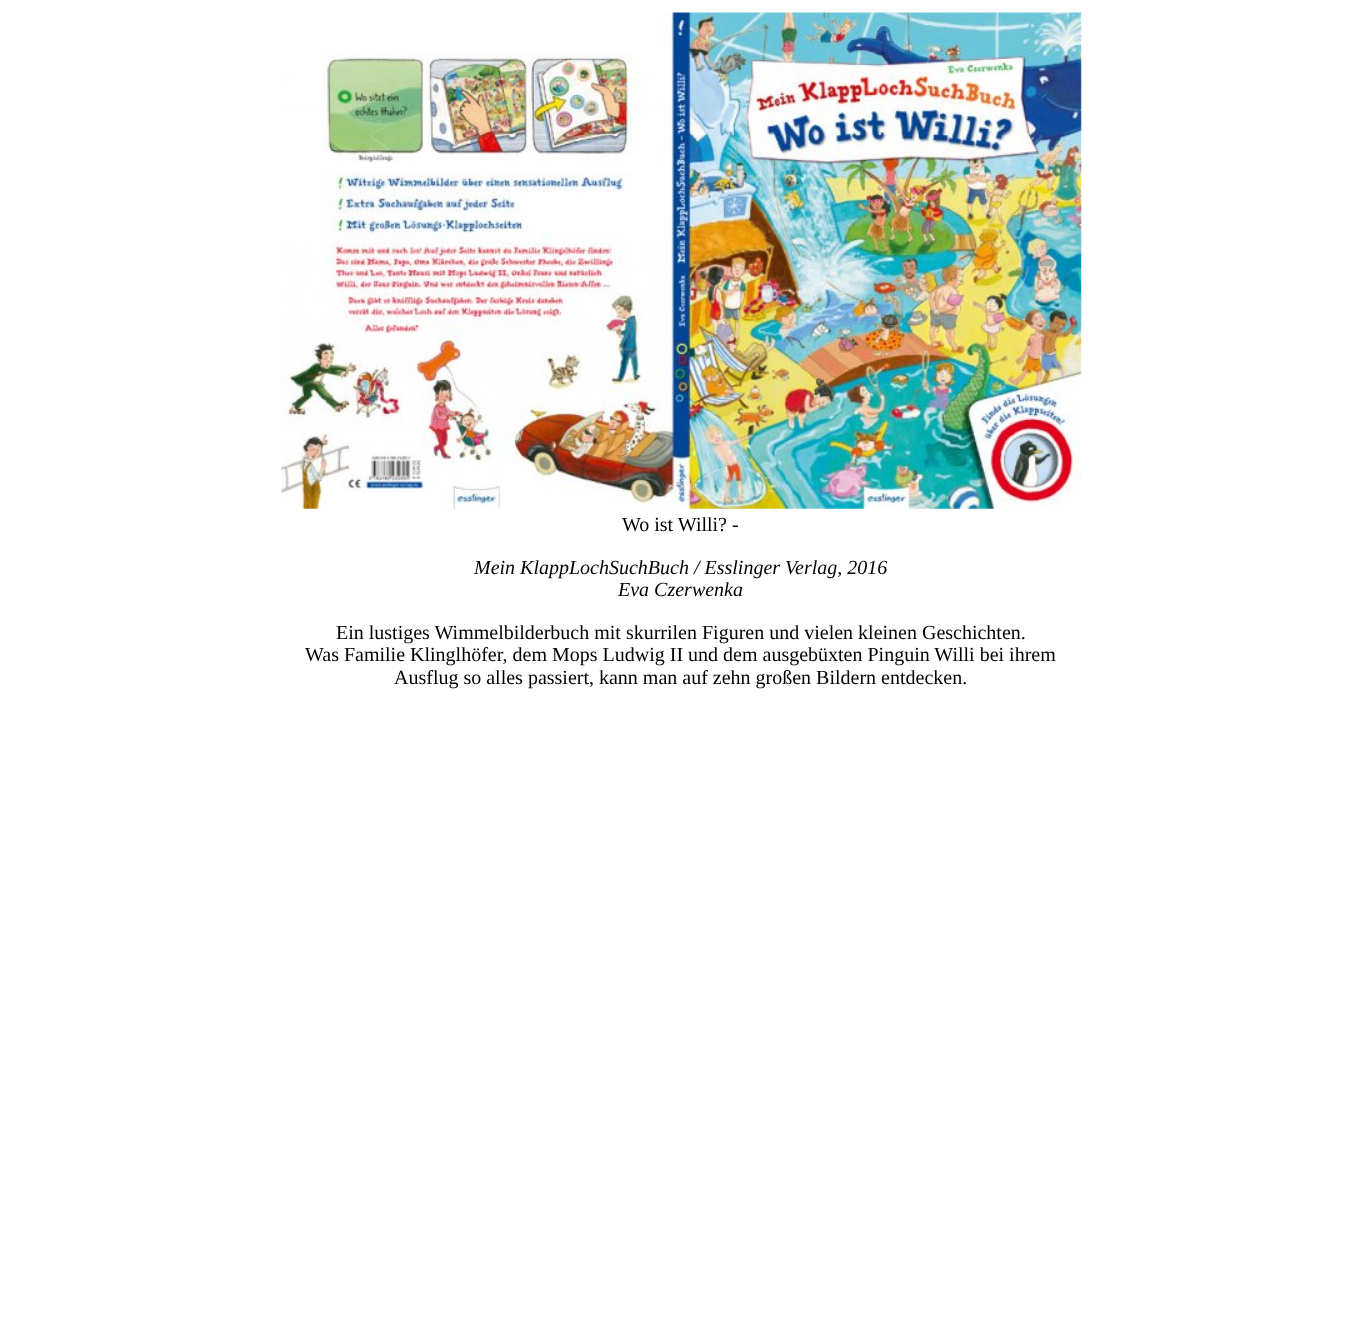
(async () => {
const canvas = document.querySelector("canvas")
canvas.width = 1361
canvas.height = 1324
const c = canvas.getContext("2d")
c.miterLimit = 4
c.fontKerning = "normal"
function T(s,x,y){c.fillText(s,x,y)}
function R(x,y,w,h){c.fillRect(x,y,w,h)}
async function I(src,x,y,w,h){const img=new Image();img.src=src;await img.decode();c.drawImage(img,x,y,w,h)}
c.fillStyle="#fff"
R(0,0,1361,1324)
await I("1.png",281,12,801,497)
c.font="20px Liberation Serif"
c.fillStyle="#000"
T("Wo ist Willi? -",622,531)
c.font="italic 20px Liberation Serif"
T("Mein KlappLochSuchBuch / Esslinger Verlag, 2016",474,574)
T("Eva Czerwenka",618,596)
c.font="20px Liberation Serif"
T("Ein lustiges Wimmelbilderbuch mit skurrilen Figuren und vielen kleinen Geschichten.",336,639)
T("Was Familie Klinglhöfer, dem Mops Ludwig II und dem ausgebüxten Pinguin Willi bei ihrem",305,661)
T("Ausflug so alles passiert, kann man auf zehn großen Bildern entdecken.",394,684)
})()
